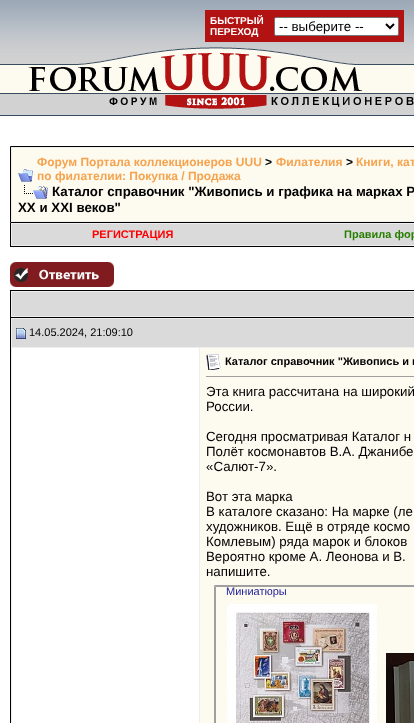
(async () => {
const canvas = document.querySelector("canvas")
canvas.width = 414
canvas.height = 723
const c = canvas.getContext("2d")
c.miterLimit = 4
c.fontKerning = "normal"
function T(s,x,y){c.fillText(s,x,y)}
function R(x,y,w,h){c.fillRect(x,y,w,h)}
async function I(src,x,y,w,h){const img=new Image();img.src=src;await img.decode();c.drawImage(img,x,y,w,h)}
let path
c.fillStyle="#fff"
R(0,0,414,723)
await I("1.png",0,0,414,116)
c.fillStyle="#b31212"
R(205,10,199,32)
c.font="bold 10px Liberation Sans"
c.fillStyle="#fff"
T("БЫСТРЫЙ",210,24)
T("ПЕРЕХОД",210,35)
c.beginPath()
c.roundRect(274.5,17.5,124,18,1.5)
c.fill()
c.strokeStyle="#767676"
c.stroke()
path = new Path2D("M386 24l4 4l4-4")
c.strokeStyle="#000"
c.lineWidth=2
c.stroke(path)
c.font="13.3px Liberation Sans"
c.fillStyle="#000"
T("-- выберите --",279,31)
c.fillStyle="#eee"
c.beginPath()
c.rect(10.5,146.5,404,76)
c.fill()
c.lineWidth=1
c.stroke()
c.fillStyle="#fdfaf0"
R(12,148,402,73)
await I("2.png",18,169,15,13)
c.font="bold 12px Liberation Sans"
c.fillStyle="#f5a34e"
T("Форум Портала коллекционеров UUU",37,166)
c.fillStyle="#000"
T(">",265,166)
c.fillStyle="#f5a34e"
T("Филателия",276,166)
c.fillStyle="#000"
T(">",346,166)
c.fillStyle="#f5a34e"
T("Книги, кат",356,166)
T("по филателии: Покупка / Продажа",37,180)
await I("3.png",24,185,24,14)
c.font="bold 13.3px Liberation Sans"
c.fillStyle="#000"
T("Каталог справочник \"Живопись и графика на марках Р",52,196)
T("ХХ и ХХI веков\"",18,212)
c.fillStyle="#eee"
R(11,223,403,23)
c.fillStyle="#000"
R(10,246,404,1)
R(10,223,1,24)
c.fillStyle="#dadada"
R(12,224,402,21)
c.font="bold 11px Liberation Sans"
c.fillStyle="#f00"
T("РЕГИСТРАЦИЯ",92,238)
c.fillStyle="#267f00"
T("Правила фор",344,238)
await I("4.png",10,262,104,25)
c.fillStyle="#eee"
R(11,291,403,26)
c.fillStyle="#000"
R(10,290,404,1)
R(10,290,1,27)
c.fillStyle="#dadada"
R(12,292,402,24)
c.strokeRect(10.5,317.5,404,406)
R(12,319,402,28)
c.fillStyle="#eee"
R(11,318,403,1)
R(11,347,403,1)
R(11,318,1,405)
await I("5.png",16,328,10,11)
c.font="11px Liberation Sans"
c.fillStyle="#000"
T("14.05.2024, 21:09:10",29,336)
c.fillStyle="#eee"
R(199,348,1,375)
c.fillStyle="#fdfaf0"
R(200,348,214,375)
await I("6.png",206,354,15,16)
c.font="bold 11px Liberation Sans"
c.fillStyle="#000"
T("Каталог справочник \"Живопись и г",225,365)
c.fillStyle="#9f9f9f"
R(206,376,208,1)
c.font="13.3px Liberation Sans"
c.fillStyle="#000"
T("Эта книга рассчитана на широкий",206,396)
T("России.",206,411)
T("Сегодня просматривая Каталог н",206,441)
T("Полёт космонавтов В.А. Джанибе",206,456)
T("«Салют-7».",206,471)
T("Вот эта марка",206,501)
T("В каталоге сказано: На марке (ле",206,516)
T("художников. Ещё в отряде космо",206,531)
T("Комлевым) ряда марок и блоков",206,546)
T("Вероятно кроме А. Леонова и В.",206,561)
T("напишите.",206,576)
c.fillStyle="#9f9f9f"
path = new Path2D("M214 585h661l-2 2h-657z")
c.fill(path)
path = new Path2D("M214 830v-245l2 2v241z")
c.fill(path)
c.font="11px Liberation Sans"
c.fillStyle="#22229c"
T("Миниатюры",226,595)
await I("7.png",227,604,150,119)
await I("8.png",386,653,28,70)
})()
